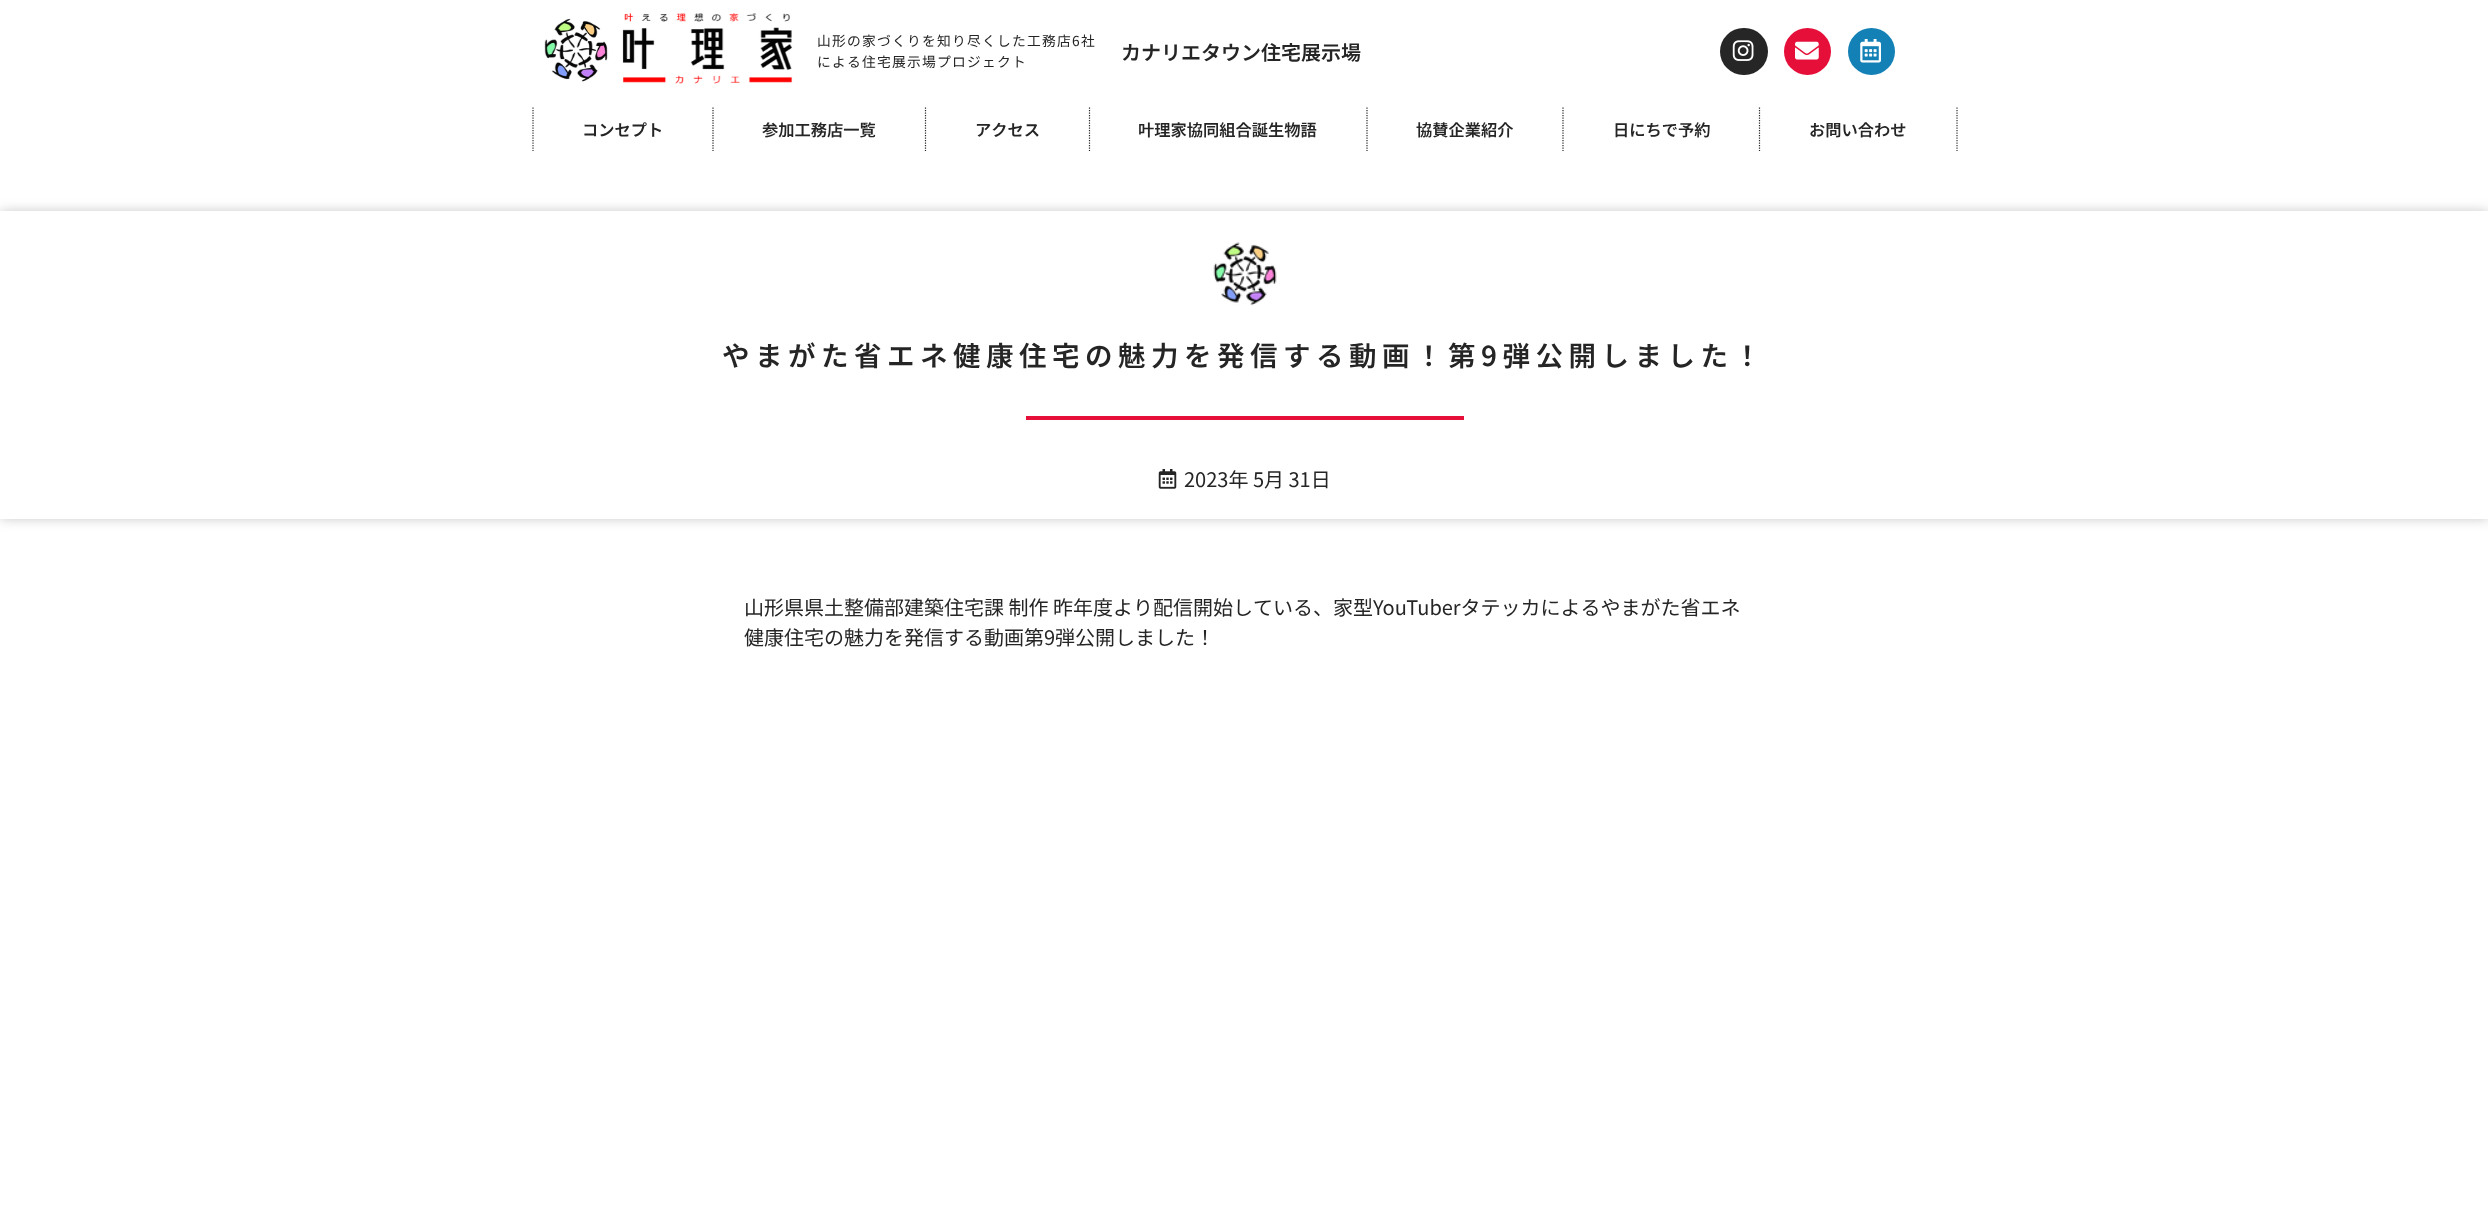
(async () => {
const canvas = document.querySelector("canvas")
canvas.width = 2488
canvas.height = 1214
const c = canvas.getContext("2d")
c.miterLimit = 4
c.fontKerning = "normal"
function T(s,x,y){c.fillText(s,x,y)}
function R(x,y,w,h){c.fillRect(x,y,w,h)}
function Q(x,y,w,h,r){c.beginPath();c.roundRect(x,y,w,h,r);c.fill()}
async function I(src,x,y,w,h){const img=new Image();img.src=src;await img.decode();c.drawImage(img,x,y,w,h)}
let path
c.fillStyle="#fff"
R(0,0,2488,1214)
await I("1.png",544,13,249,71)
c.letterSpacing="1.25px"
c.font="13.75px Noto Sans JP"
c.fillStyle="#252525"
T("山形の家づくりを知り尽くした工務店6社",817,46)
T("による住宅展示場プロジェクト",817,67)
c.letterSpacing="0px"
c.font="600 20px Noto Sans JP"
T("カナリエタウン住宅展示場",1121,60)
c.fillStyle="#262626"
Q(1720,28,48,47,23.5)
await I("2.png",1732,40,22,21)
c.fillStyle="#e50f39"
c.beginPath()
c.arc(1807.5,51.5,23.5,0,7)
c.fill()
await I("3.png",1795,41,24,19)
c.fillStyle="#1381b5"
c.beginPath()
c.arc(1871.5,51.5,23.5,0,7)
c.fill()
await I("4.png",1860,39,21,24)
path = new Path2D("M1957 107.5v43.5")
c.strokeStyle="#333"
c.lineWidth=1.2
c.setLineDash([1.25,1.25])
c.stroke(path)
path = new Path2D("M533 107.5v43.5")
c.stroke(path)
c.font="600 16.25px Noto Sans JP"
c.fillStyle="#252525"
T("コンセプト",582,136)
path = new Path2D("M713 107.5v43.5")
c.strokeStyle="#252525"
c.stroke(path)
T("参加工務店一覧",762,136)
path = new Path2D("M925.5 107.5v43.5")
c.stroke(path)
T("アクセス",975,136)
path = new Path2D("M1089.5 107.5v43.5")
c.stroke(path)
T("叶理家協同組合誕生物語",1138,136)
path = new Path2D("M1367 107.5v43.5")
c.stroke(path)
T("協賛企業紹介",1416,136)
path = new Path2D("M1563 107.5v43.5")
c.stroke(path)
T("日にちで予約",1613,136)
path = new Path2D("M1759.5 107.5v43.5")
c.stroke(path)
T("お問い合わせ",1809,136)
c.save()
path = new Path2D("M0 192h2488v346h-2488zm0 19h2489v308h-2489z")
c.clip(path,"evenodd")
c.fillStyle="#96969680"
c.filter="blur(6px)"
c.beginPath()
c.rect(0,211,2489,308)
c.fill()
c.filter="none"
c.restore()
await I("5.png",1213,242,64,64)
c.letterSpacing="5.5px"
c.font="600 27.5px Noto Sans JP"
T("やまがた省エネ健康住宅の魅力を発信する動画！第9弾公開しました！",722,366)
c.fillStyle="#e50f39"
R(1026,416,438,4)
await I("6.png",1158,469,19,20)
c.letterSpacing="0px"
c.font="20px Noto Sans JP"
c.fillStyle="#252525"
T("2023年 5月 31日",1184,487)
T("山形県県土整備部建築住宅課 制作 昨年度より配信開始している、家型YouTuberタテッカによるやまがた省エネ",744,615)
T("健康住宅の魅力を発信する動画第9弾公開しました！",744,645)
})()
